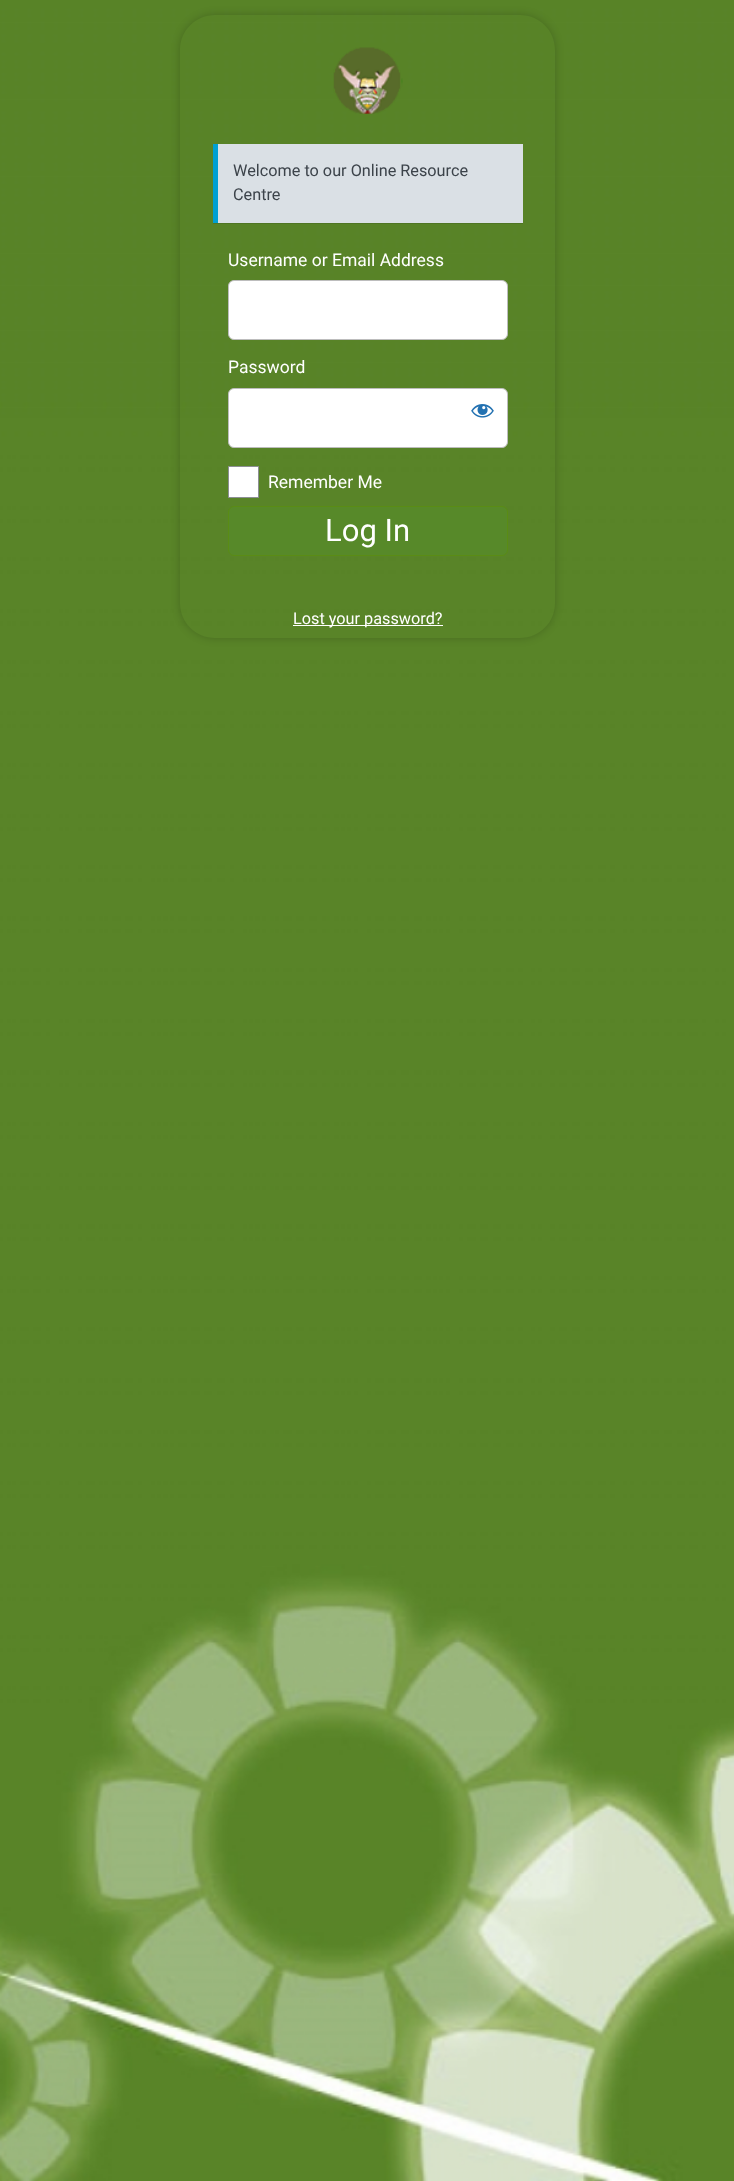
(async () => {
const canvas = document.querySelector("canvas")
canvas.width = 734
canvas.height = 2181
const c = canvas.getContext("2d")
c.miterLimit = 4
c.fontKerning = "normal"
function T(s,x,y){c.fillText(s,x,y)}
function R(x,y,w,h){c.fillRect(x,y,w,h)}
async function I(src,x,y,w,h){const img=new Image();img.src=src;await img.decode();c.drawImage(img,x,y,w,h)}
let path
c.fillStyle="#fff"
R(0,0,734,2181)
await I("1.png",0,0,734,2181)
c.save()
path = new Path2D("M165 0h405v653h-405zm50 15h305c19.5 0 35 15.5 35 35v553c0 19.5-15.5 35-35 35h-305c-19.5 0-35-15.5-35-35v-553c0-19.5 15.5-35 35-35z")
c.clip(path,"evenodd")
c.fillStyle="#00000033"
c.filter="blur(4.5px)"
c.beginPath()
c.roundRect(180,15,375,623,35)
c.fill()
c.filter="none"
c.restore()
await I("2.png",333,47,70,67)
c.fillStyle="#0000001a"
c.filter="blur(0.5px)"
c.beginPath()
c.rect(213,145,310,79)
c.fill()
c.filter="none"
c.fillStyle="#dae0e5"
R(218,144,305,79)
c.fillStyle="#00a0d2"
R(213,144,5,79)
c.font="16.25px Roboto"
c.fillStyle="#3c434a"
T("Welcome to our Online Resource",233,176)
T("Centre",233,200)
c.font="17.5px Roboto"
c.fillStyle="#fff"
T("Username or Email Address",228,266)
c.beginPath()
c.roundRect(228.5,280.5,279,59,5.5)
c.fill()
c.strokeStyle="#bdbdbd"
c.stroke()
T("Password",228,373)
c.beginPath()
c.roundRect(228.5,388.5,279,59,5.5)
c.fill()
c.stroke()
await I("3.png",471,404,23,14)
c.beginPath()
c.rect(228.5,466.5,30,31)
c.fill()
c.strokeStyle="#8c8f94"
c.stroke()
T("Remember Me",268,488)
c.fillStyle="#578929"
c.beginPath()
c.roundRect(228.5,506.5,279,49,5.5)
c.fill()
c.strokeStyle="#5a8c15"
c.stroke()
c.font="31px Roboto"
c.fillStyle="#fff"
T("Log In",325,541)
R(293,625,150,1)
c.font="16.25px Roboto"
T("Lost your password?",293,624)
})()
